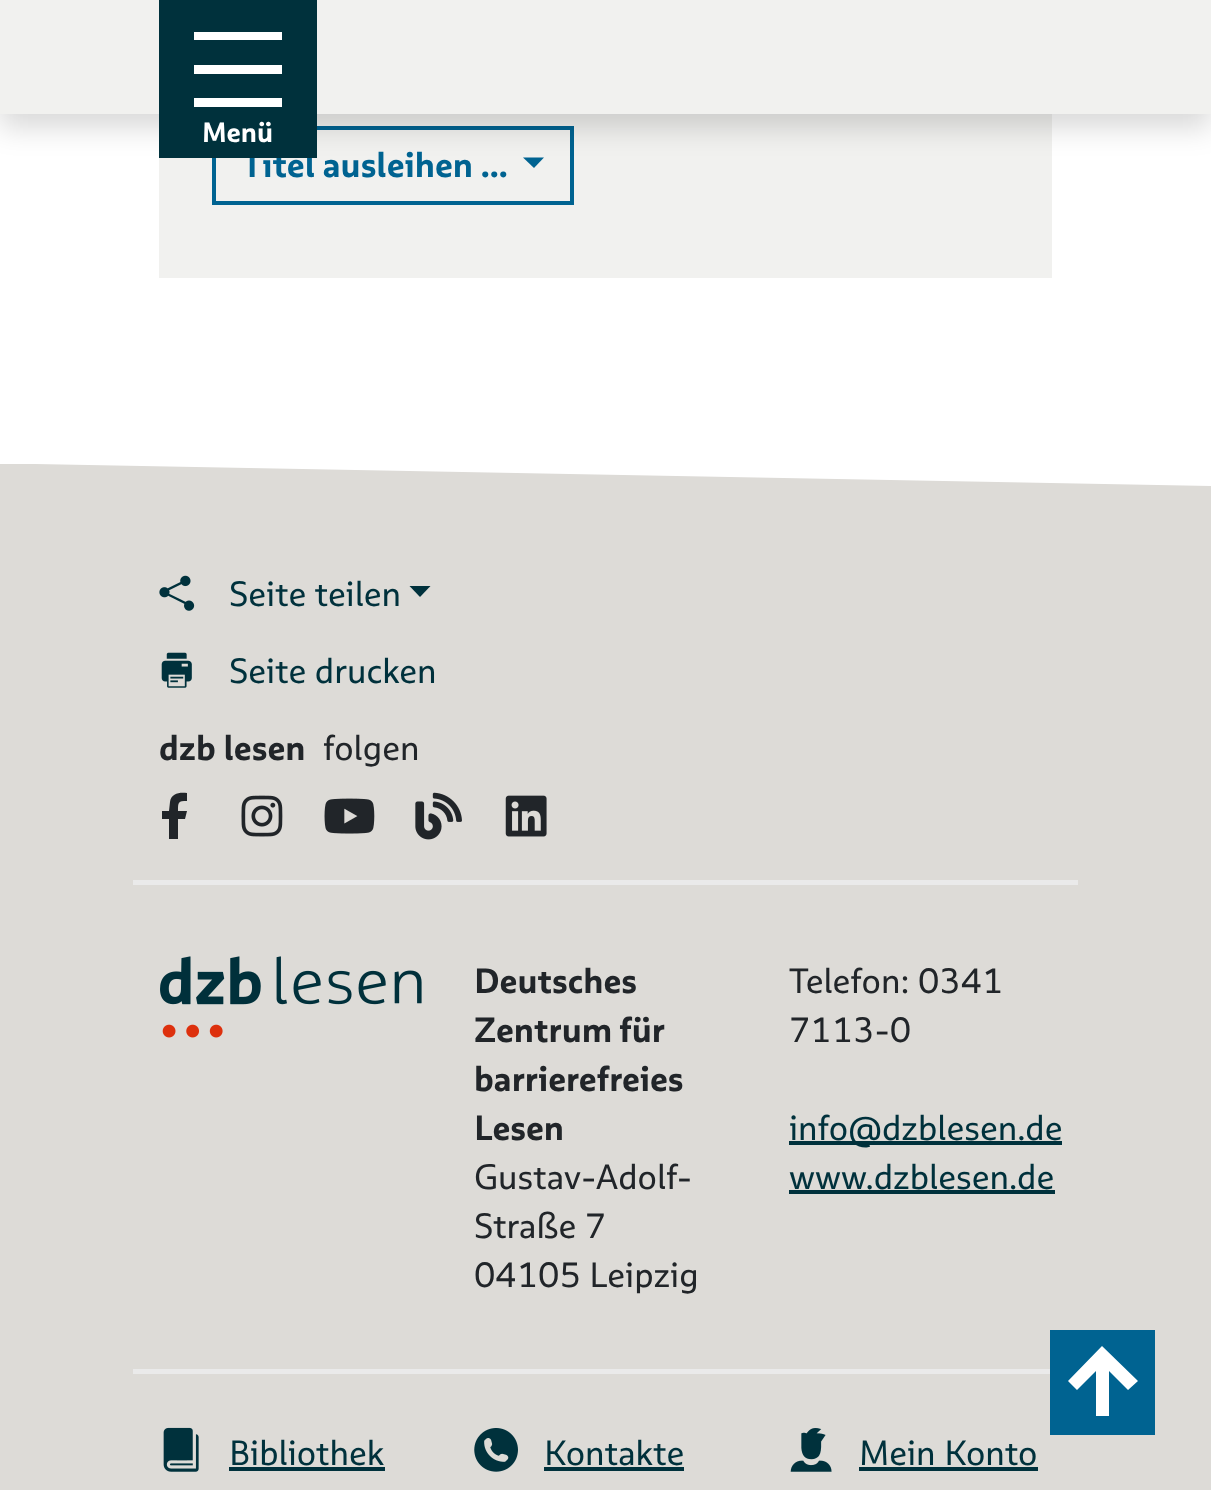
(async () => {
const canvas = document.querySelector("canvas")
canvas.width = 1211
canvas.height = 1490
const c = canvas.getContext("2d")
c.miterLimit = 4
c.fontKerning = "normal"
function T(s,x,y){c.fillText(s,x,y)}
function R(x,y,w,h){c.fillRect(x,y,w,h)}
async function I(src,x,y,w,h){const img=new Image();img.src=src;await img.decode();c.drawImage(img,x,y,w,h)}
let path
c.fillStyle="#fff"
R(0,0,1211,1490)
c.fillStyle="#f1f1ef"
R(159,114,893,164)
c.strokeStyle="#006391"
c.lineWidth=4
c.strokeRect(214,128,358,75)
c.fillStyle="#006391"
path = new Path2D("M523 157.5h21l-10 10.5z")
c.fill(path)
c.fillStyle="#00000026"
c.filter="blur(14px)"
c.beginPath()
c.rect(0,14,1211,114)
c.fill()
c.filter="none"
c.fillStyle="#f1f1ef"
R(0,0,1211,114)
c.font="bold 35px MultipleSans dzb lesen"
c.fillStyle="#006391"
T("Titel ausleihen ...",242,177)
c.fillStyle="#00313c"
R(159,0,158,158)
c.fillStyle="#fff"
R(194,32,88,8)
R(194,65,88,9)
R(194,98,88,9)
c.font="bold 28px MultipleSans dzb lesen"
T("Menü",202,142)
c.fillStyle="#dddbd7"
R(0,464,1211,1026)
c.fillStyle="#fff"
path = new Path2D("M35 464h1176v22z")
c.fill(path)
c.fillStyle="#eaeaea"
R(133,880,945,5)
await I("1.png",159,575,36,36)
c.font="35px MultipleSans dzb lesen"
c.fillStyle="#00313c"
T("Seite teilen",229,606)
path = new Path2D("M409.5 586h21l-10.5 11z")
c.fill(path)
await I("2.png",161,652,31,36)
T("Seite drucken",229,683)
c.font="bold 35px MultipleSans dzb lesen"
c.fillStyle="#212529"
T("dzb lesen",159,760)
c.font="35px MultipleSans dzb lesen"
T("folgen",323,760)
path = new Path2D("M185 819l2-8h-9c0-9 0-10 9-10v-8c-7-1-16 0-17 9l-1 9h-7v8h7v20h9v-20z")
c.fill(path)
await I("3.png",241,795,42,42)
await I("4.png",324,798,51,36)
await I("5.png",415,792,47,48)
await I("6.png",505,795,42,42)
await I("7.png",160,956,262,82)
c.font="bold 35px MultipleSans dzb lesen"
T("Deutsches",474,993)
c.wordSpacing="-1px"
T("Zentrum für",474,1042)
c.wordSpacing="0px"
T("barrierefreies",474,1091)
T("Lesen",474,1140)
c.font="35px MultipleSans dzb lesen"
T("Gustav-Adolf-",474,1189)
T("Straße 7",474,1238)
T("04105 Leipzig",474,1287)
T("Telefon: 0341",789,993)
T("7113-0",789,1042)
c.fillStyle="#00313c"
R(789,1141,273,4)
T("info@dzblesen.de",789,1140)
T("www.dzblesen.de",789,1189)
R(789,1190,266,4)
c.fillStyle="#eaeaea"
R(133,1369,917,5)
await I("8.png",163,1427,36,45)
c.fillStyle="#00313c"
T("Bibliothek",229,1465)
R(229,1467,156,4)
await I("9.png",474,1428,44,44)
T("Kontakte",544,1465)
R(544,1467,140,4)
await I("10.png",790,1428,42,44)
T("Mein Konto",859,1465)
R(859,1467,179,4)
c.fillStyle="#006391"
R(1050,1330,105,105)
c.fillStyle="#fff"
path = new Path2D("M1128 1390l-19-19v45h-13v-45l-19 19l-9-9l34-35l36 35z")
c.fill(path)
})()
